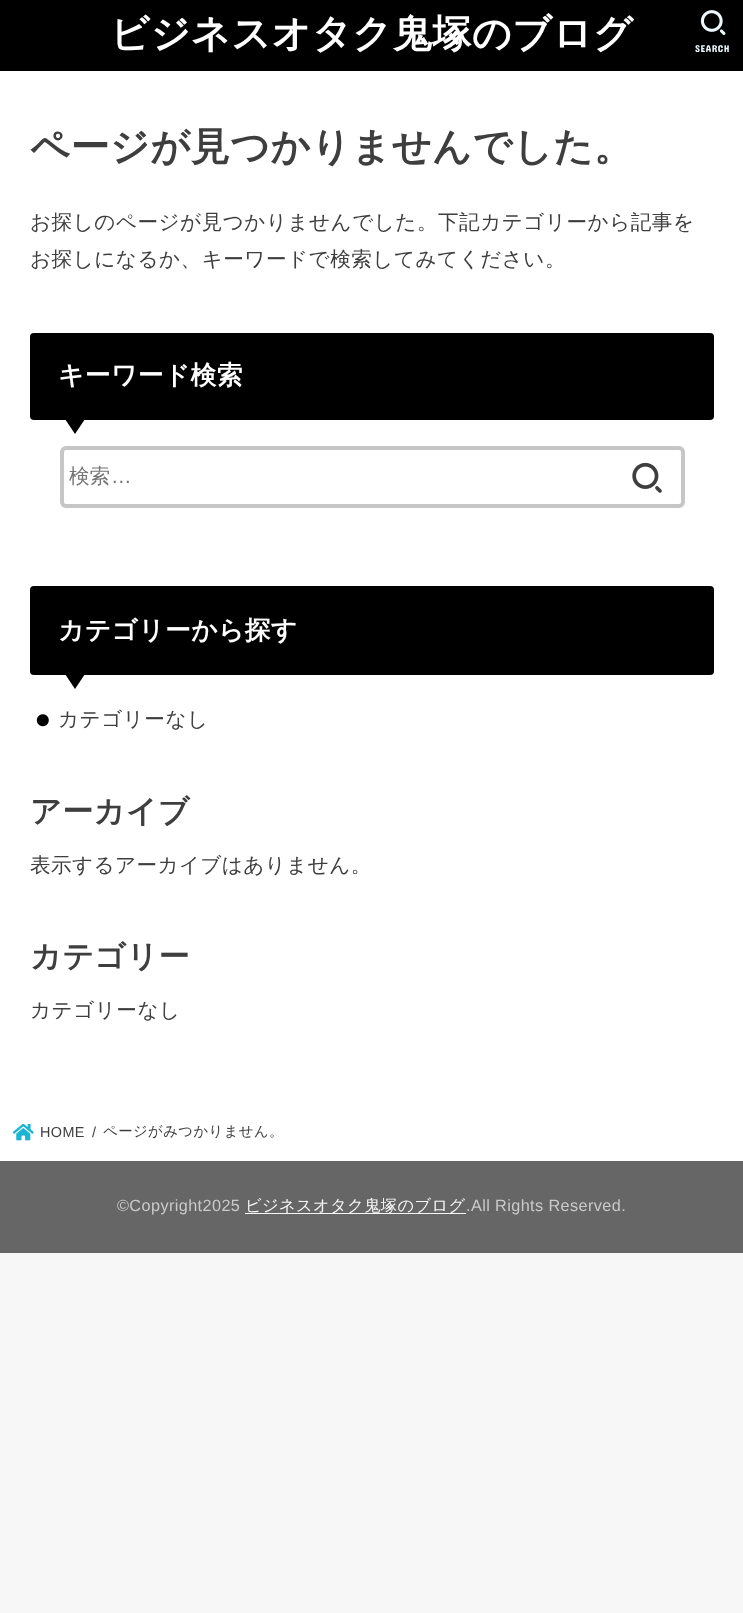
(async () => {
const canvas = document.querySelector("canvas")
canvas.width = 743
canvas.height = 1613
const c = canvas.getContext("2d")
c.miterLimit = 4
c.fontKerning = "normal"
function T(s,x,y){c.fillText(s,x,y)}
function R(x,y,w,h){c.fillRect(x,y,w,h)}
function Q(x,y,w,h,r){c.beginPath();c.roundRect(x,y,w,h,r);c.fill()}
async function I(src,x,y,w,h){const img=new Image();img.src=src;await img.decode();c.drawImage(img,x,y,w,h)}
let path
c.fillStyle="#f7f7f7"
R(0,0,743,1613)
c.fillStyle="#000"
R(0,0,743,71)
c.letterSpacing="0.4px"
c.font="bold 39.1px WenQuanYi Zen Hei"
c.fillStyle="#fff"
T("ビジネスオタク鬼塚のブログ",110,47)
await I("1.png",700,10,26,25)
c.letterSpacing="0.5px"
c.font="10px Concert One"
c.fillStyle="#edf9fc"
T("SEARCH",695,52)
c.fillStyle="#fff"
R(0,71,743,1090)
c.letterSpacing="0.4px"
c.font="bold 39.1px WenQuanYi Zen Hei"
c.fillStyle="#3e3e3e"
T("ページが見つかりませんでした。",30,160)
c.letterSpacing="0.5px"
c.font="500 20.6px WenQuanYi Zen Hei"
T("お探しのページが見つかりませんでした。下記カテゴリーから記事を",30,229)
T("お探しになるか、キーワードで検索してみてください。",30,266)
c.fillStyle="#000"
Q(30,333,684,87,4)
c.letterSpacing="0.4px"
c.font="bold 25.75px WenQuanYi Zen Hei"
c.fillStyle="#fff"
T("キーワード検索",58,384)
c.fillStyle="#000"
path = new Path2D("M64 417.5h22l-11 16.5z")
c.fill(path)
c.beginPath()
c.roundRect(62,448,621,58,4)
c.strokeStyle="#c6c6c6"
c.lineWidth=4
c.stroke()
c.letterSpacing="0px"
c.font="500 20.6px WenQuanYi Zen Hei"
c.fillStyle="#757575"
T("検索",69,483)
c.font="20.6px Liberation Sans"
T("…",111,483)
await I("2.png",632,462,30,31)
c.fillStyle="#000"
Q(30,586,684,89,4)
c.letterSpacing="0.4px"
c.font="bold 25.75px WenQuanYi Zen Hei"
c.fillStyle="#fff"
T("カテゴリーから探す",58,639)
c.fillStyle="#000"
path = new Path2D("M64 672.5h22l-11 16.5z")
c.fill(path)
await I("3.png",36,714,13,13)
c.letterSpacing="0.5px"
c.font="500 20.6px WenQuanYi Zen Hei"
c.fillStyle="#3e3e3e"
T("カテゴリーなし",58,726)
c.letterSpacing="0.4px"
c.font="bold 31px WenQuanYi Zen Hei"
T("アーカイブ",30,822)
c.font="500 20.6px WenQuanYi Zen Hei"
T("表示するアーカイブはありません。",30,872)
c.font="bold 31px WenQuanYi Zen Hei"
T("カテゴリー",30,967)
c.letterSpacing="0.5px"
c.font="500 20.6px WenQuanYi Zen Hei"
T("カテゴリーなし",30,1017)
await I("4.png",12,1123,22,18)
c.letterSpacing="0.4px"
c.font="14.4px Liberation Sans"
T("HOME",40,1137)
T("/",92,1137)
c.font="500 14.4px WenQuanYi Zen Hei"
T("ページがみつかりません。",103,1136)
c.fillStyle="#666"
R(0,1161,743,92)
c.font="16.25px Liberation Sans"
c.fillStyle="#cacaca"
T("©Copyright2025",117,1211)
c.fillStyle="#f7f7f7"
R(245,1213,221,1)
c.font="500 16.25px WenQuanYi Zen Hei"
T("ビジネスオタク鬼塚のブログ",245,1211)
c.font="16.25px Liberation Sans"
c.fillStyle="#cacaca"
T(".All Rights Reserved.",466,1211)
})()
